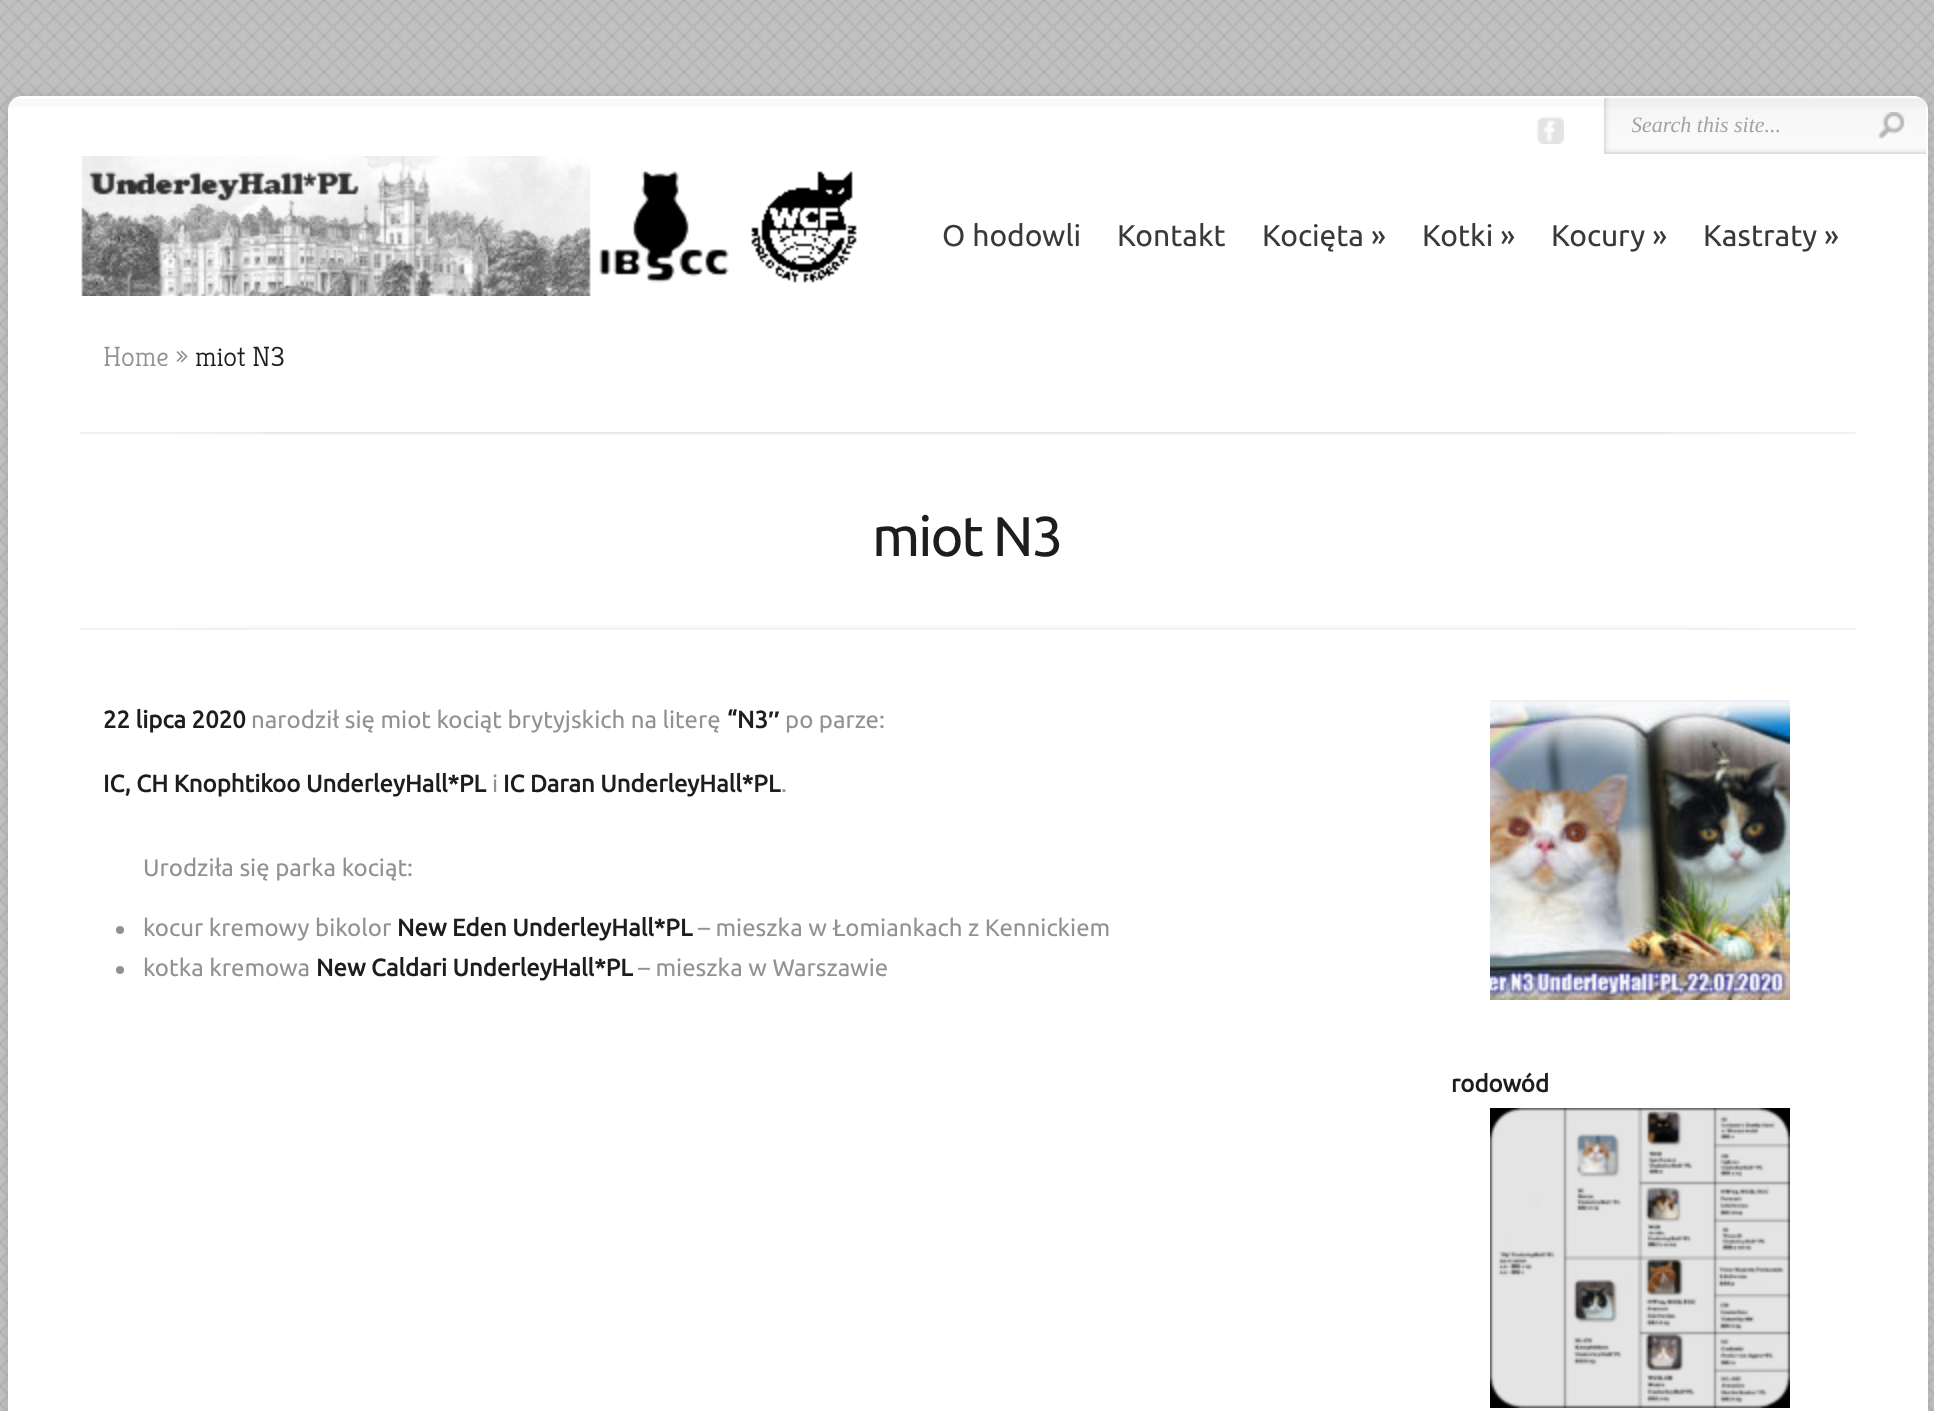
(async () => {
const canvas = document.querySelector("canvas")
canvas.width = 1934
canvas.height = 1411
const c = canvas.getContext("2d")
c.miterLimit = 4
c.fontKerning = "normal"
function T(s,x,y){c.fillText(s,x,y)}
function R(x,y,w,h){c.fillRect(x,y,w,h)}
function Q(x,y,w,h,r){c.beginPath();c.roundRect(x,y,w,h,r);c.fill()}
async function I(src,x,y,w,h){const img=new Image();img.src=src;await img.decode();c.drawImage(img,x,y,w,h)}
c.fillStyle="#c1c1c1"
R(0,0,1934,1411)
await I("1.png",0,0,1934,1411)
c.fillStyle="#0000001a"
c.filter="blur(6px)"
c.beginPath()
c.roundRect(8,96,1920,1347,14)
c.fill()
c.filter="none"
c.fillStyle="#fff"
Q(8,96,1920,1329,14)
await I("2.png",9,99,1918,8)
await I("3.png",1536,116,28,28)
await I("4.png",1604,98,322,56)
c.save()
c.beginPath()
c.rect(1632,112,228,24)
c.clip()
c.font="italic 22px Liberation Serif"
c.fillStyle="#a3a3a3"
T("Search this site...",1631,132)
c.restore()
await I("5.png",1878,112,28,27)
await I("6.png",81,156,776,140)
c.font="30px Ubuntu"
c.fillStyle="#393939"
T("O hodowli",942,246)
T("Kontakt",1117,246)
T("Kocięta »",1262,246)
T("Kotki »",1422,246)
T("Kocury »",1551,246)
T("Kastraty »",1703,246)
c.font="300 28px Kreon"
c.fillStyle="#929292"
T("Home »",103,366)
c.fillStyle="#1d1d1d"
T("miot N3",195,366)
await I("7.png",80,432,1776,3)
await I("8.png",80,625,1776,5)
c.letterSpacing="-2px"
c.font="56px Ubuntu"
T("miot N3",872,556)
c.letterSpacing="0px"
c.font="bold 24px Ubuntu"
T("22 lipca 2020",103,728)
c.font="24px Ubuntu"
c.fillStyle="#929292"
T("narodził się miot kociąt brytyjskich na literę",251,728)
c.font="bold 24px Ubuntu"
c.fillStyle="#1d1d1d"
T("“N3",727,728)
c.font="bold 24px Liberation Sans"
T("″",768,728)
c.font="24px Ubuntu"
c.fillStyle="#929292"
T("po parze:",785,728)
c.font="bold 24px Ubuntu"
c.fillStyle="#1d1d1d"
T("IC, CH Knophtikoo UnderleyHall*PL",103,792)
c.font="24px Ubuntu"
c.fillStyle="#929292"
T("i",492,792)
c.font="bold 24px Ubuntu"
c.fillStyle="#1d1d1d"
T("IC Daran UnderleyHall*PL",503,792)
c.font="24px Ubuntu"
c.fillStyle="#929292"
T(".",781,792)
T("Urodziła się parka kociąt:",143,876)
c.beginPath()
c.arc(120,930,4,0,7)
c.fill()
T("kocur kremowy bikolor",143,936)
c.font="bold 24px Ubuntu"
c.fillStyle="#1d1d1d"
T("New Eden UnderleyHall*PL",397,936)
c.font="24px Ubuntu"
c.fillStyle="#929292"
T("– mieszka w Łomiankach z Kennickiem",698,936)
c.beginPath()
c.arc(120,970,4,0,7)
c.fill()
T("kotka kremowa",143,976)
c.font="bold 24px Ubuntu"
c.fillStyle="#1d1d1d"
T("New Caldari UnderleyHall*PL",316,976)
c.font="24px Ubuntu"
c.fillStyle="#929292"
T("– mieszka w Warszawie",638,976)
await I("9.png",1490,700,300,300)
c.font="bold 24px Ubuntu"
c.fillStyle="#1d1d1d"
T("rodowód",1451,1092)
await I("10.png",1490,1108,300,300)
})()
